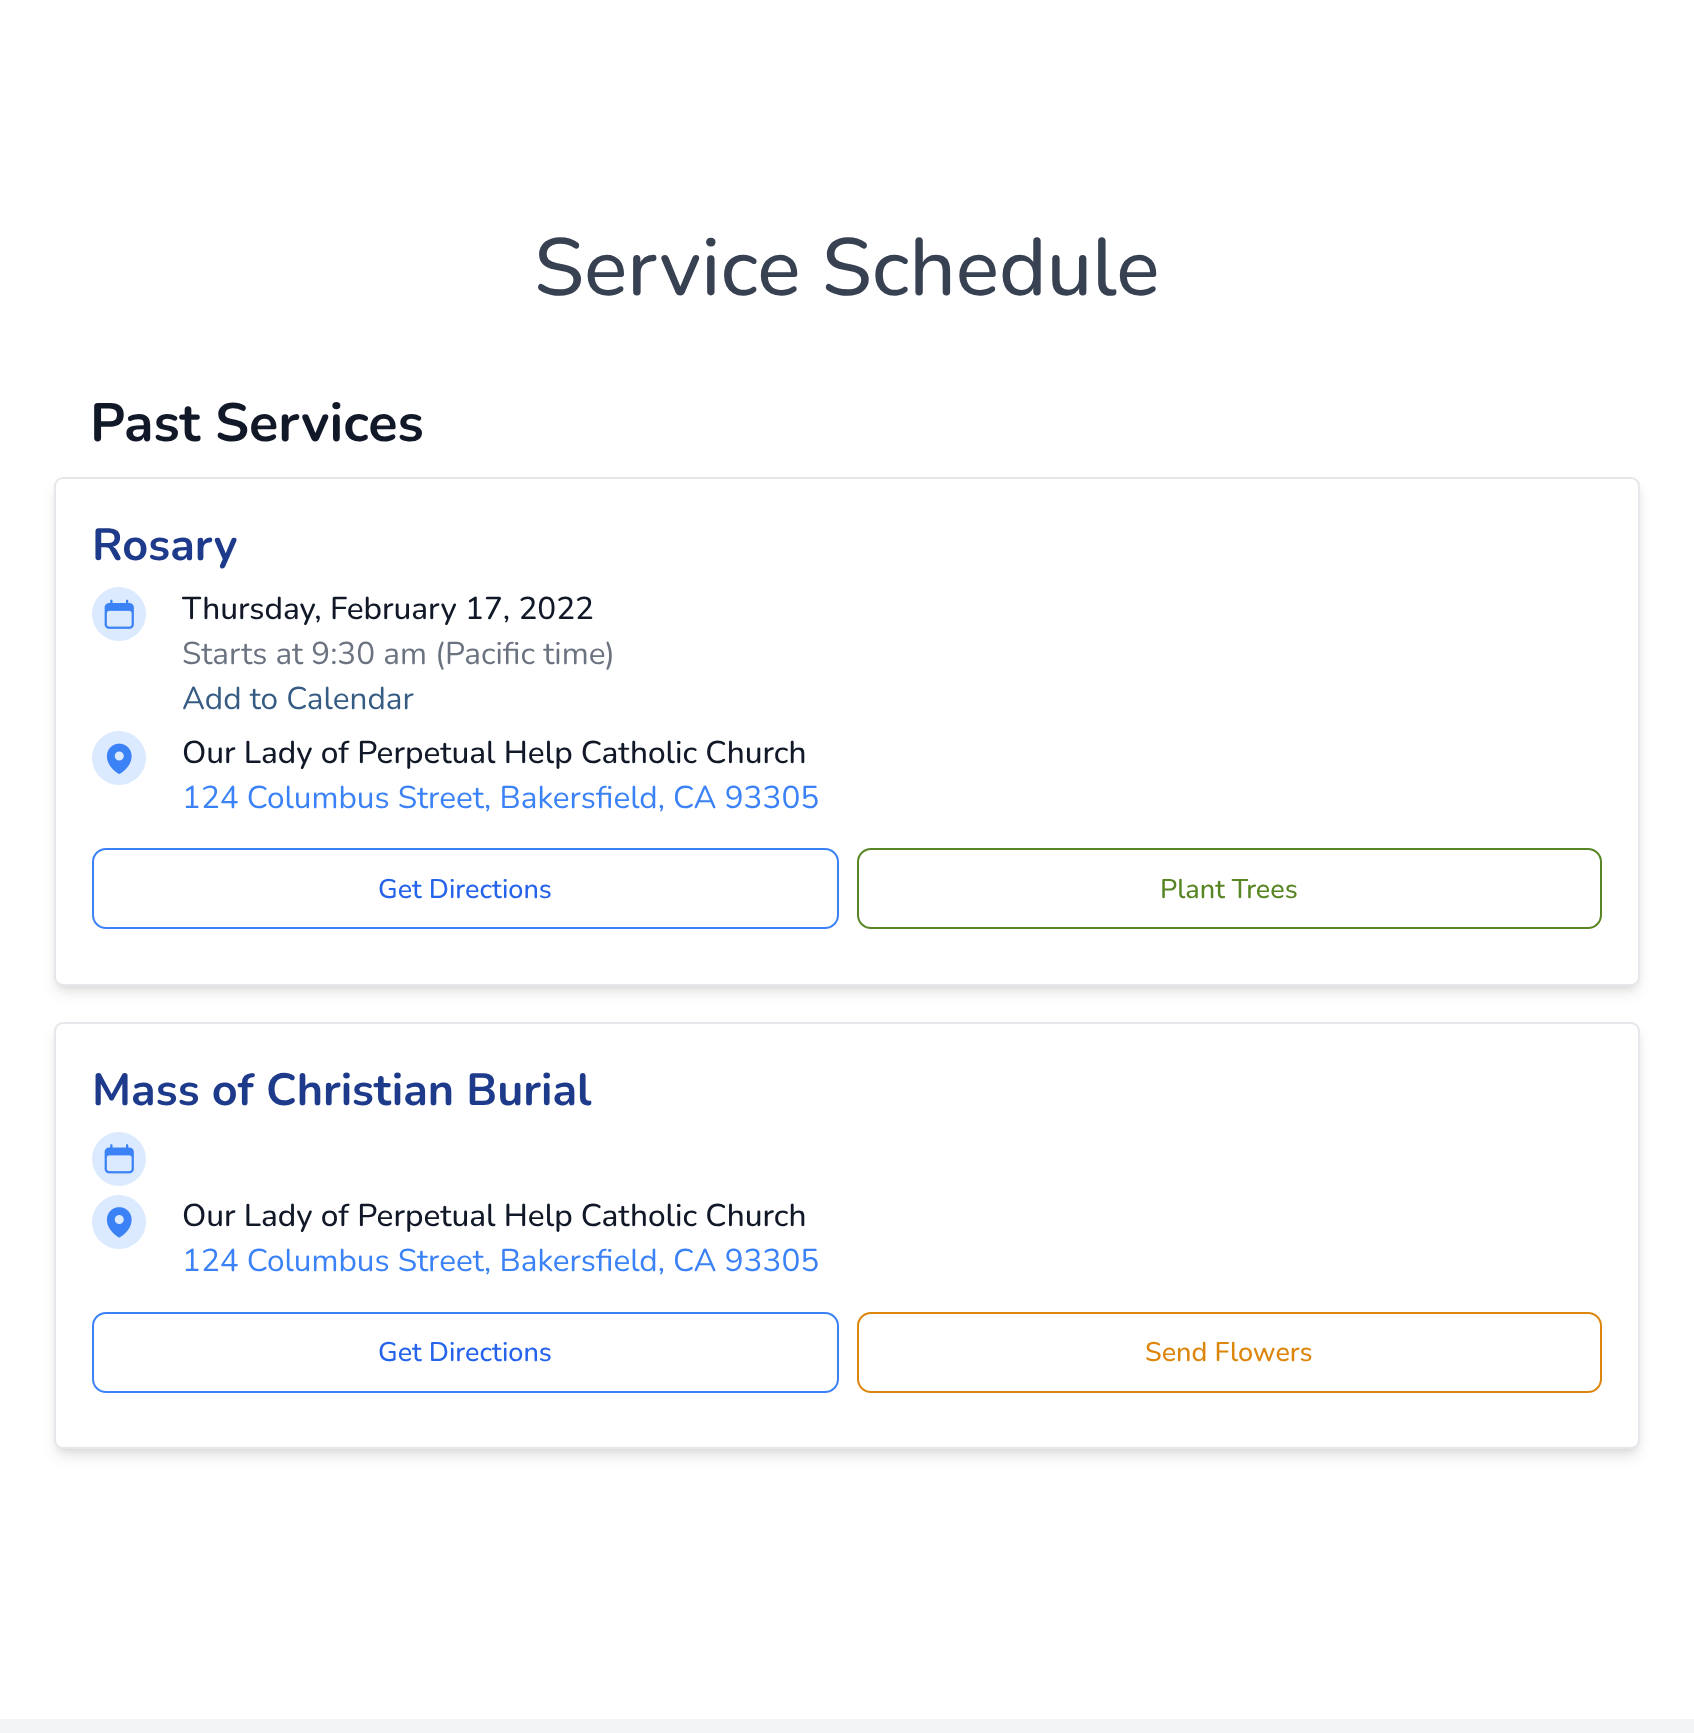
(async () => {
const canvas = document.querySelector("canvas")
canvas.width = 1694
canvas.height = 1733
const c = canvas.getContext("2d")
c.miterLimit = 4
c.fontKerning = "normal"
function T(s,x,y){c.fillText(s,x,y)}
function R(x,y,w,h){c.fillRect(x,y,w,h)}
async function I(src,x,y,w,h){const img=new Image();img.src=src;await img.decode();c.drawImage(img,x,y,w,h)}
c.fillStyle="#fff"
R(0,0,1694,1733)
c.font="500 81px Nunito"
c.fillStyle="#374151"
T("Service Schedule",534,295)
c.font="bold 54px Nunito"
c.fillStyle="#111827"
T("Past Services",90,441)
c.fillStyle="#0000001a"
c.filter="blur(4.5px)"
c.beginPath()
c.roundRect(59,486,1577,500,5)
c.fill()
c.filter="none"
c.filter="blur(7px)"
c.beginPath()
c.roundRect(56,488,1582,504,7)
c.fill()
c.filter="none"
c.fillStyle="#fff"
c.beginPath()
c.roundRect(55,478,1584,507,8)
c.fill()
c.strokeStyle="#e5e7eb"
c.lineWidth=2
c.stroke()
c.font="bold 45px Nunito"
c.fillStyle="#1e3a8a"
T("Rosary",92,560)
c.fillStyle="#dbeafe"
c.beginPath()
c.arc(119,614,27,0,7)
c.fill()
await I("1.png",104,599,30,30)
c.font="500 31.5px Nunito"
c.fillStyle="#111827"
T("Thursday, February 17, 2022",182,619)
c.font="31.5px Nunito"
c.fillStyle="#6b7280"
T("Starts at 9:30 am (Pacific time)",182,664)
c.fillStyle="#375c84"
T("Add to Calendar",182,709)
c.fillStyle="#dbeafe"
c.beginPath()
c.arc(119,758,27,0,7)
c.fill()
await I("2.png",106,743,26,31)
c.font="500 31.5px Nunito"
c.fillStyle="#111827"
T("Our Lady of Perpetual Help Catholic Church",182,763)
c.font="31.5px Nunito"
c.fillStyle="#3b82f6"
T("124 Columbus Street, Bakersfield, CA 93305",182,808)
c.beginPath()
c.roundRect(93,849,745,79,13)
c.strokeStyle="#3b82f6"
c.stroke()
c.font="500 27px Nunito"
c.fillStyle="#2563eb"
T("Get Directions",378,898)
c.beginPath()
c.roundRect(858,849,743,79,13)
c.strokeStyle="#588624"
c.stroke()
c.fillStyle="#588624"
T("Plant Trees",1160,898)
c.fillStyle="#0000001a"
c.filter="blur(4.5px)"
c.beginPath()
c.roundRect(59,1031,1577,418,5)
c.fill()
c.filter="none"
c.filter="blur(7px)"
c.beginPath()
c.roundRect(56,1033,1582,423,7)
c.fill()
c.filter="none"
c.fillStyle="#fff"
c.beginPath()
c.roundRect(55,1023,1584,425,8)
c.fill()
c.strokeStyle="#e5e7eb"
c.stroke()
c.font="bold 45px Nunito"
c.fillStyle="#1e3a8a"
T("Mass of Christian Burial",92,1105)
c.fillStyle="#dbeafe"
c.beginPath()
c.arc(119,1159,27,0,7)
c.fill()
await I("3.png",104,1144,30,30)
c.beginPath()
c.arc(119,1222,27,0,7)
c.fill()
await I("4.png",106,1207,26,31)
c.font="500 31.5px Nunito"
c.fillStyle="#111827"
T("Our Lady of Perpetual Help Catholic Church",182,1226)
c.font="31.5px Nunito"
c.fillStyle="#3b82f6"
T("124 Columbus Street, Bakersfield, CA 93305",182,1271)
c.beginPath()
c.roundRect(93,1313,745,79,13)
c.strokeStyle="#3b82f6"
c.stroke()
c.font="500 27px Nunito"
c.fillStyle="#2563eb"
T("Get Directions",378,1361)
c.beginPath()
c.roundRect(858,1313,743,79,13)
c.strokeStyle="#dc860d"
c.stroke()
c.fillStyle="#dc860d"
T("Send Flowers",1145,1361)
c.fillStyle="#f3f4f6"
R(0,1719,1694,14)
})()
